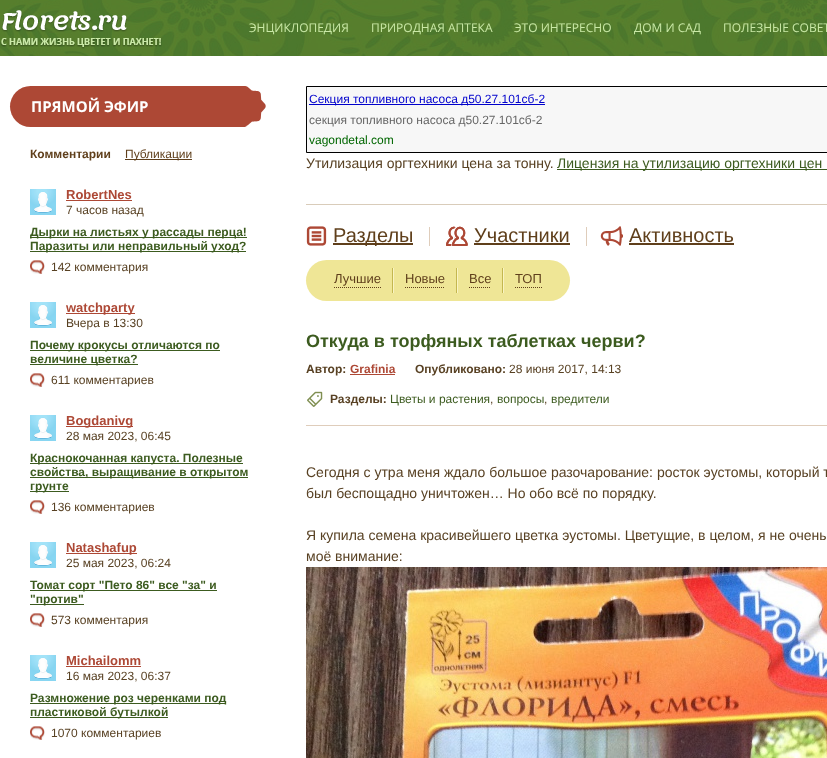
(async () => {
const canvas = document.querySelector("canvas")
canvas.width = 827
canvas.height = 758
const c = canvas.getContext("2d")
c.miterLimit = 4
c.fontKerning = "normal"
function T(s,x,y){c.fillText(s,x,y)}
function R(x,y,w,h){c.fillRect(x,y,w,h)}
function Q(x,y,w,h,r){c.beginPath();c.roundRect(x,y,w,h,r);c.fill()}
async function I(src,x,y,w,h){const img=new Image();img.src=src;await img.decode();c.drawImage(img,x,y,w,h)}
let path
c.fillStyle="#fff"
R(0,0,827,758)
await I("1.png",0,0,827,56)
await I("2.png",0,10,162,39)
c.font="12px Open Sans"
c.fillStyle="#cae9a7"
T("ЭНЦИКЛОПЕДИЯ",249,32)
T("ПРИРОДНАЯ АПТЕКА",371,32)
T("ЭТО ИНТЕРЕСНО",514,32)
T("ДОМ И САД",634,32)
T("ПОЛЕЗНЫЕ СОВЕТ",723,32)
c.fillStyle="#ad4835"
c.beginPath()
c.roundRect(10,86,256,41,[20.5,0,0,20.5])
c.fill()
await I("3.png",245,86,21,41)
c.font="bold 15px Open Sans"
c.fillStyle="#fff"
T("ПРЯМОЙ ЭФИР",31,112)
c.font="bold 12px Liberation Sans"
c.fillStyle="#5f3f1b"
T("Комментарии",30,158)
R(125,159,67,1)
c.font="12px Liberation Sans"
T("Публикации",125,158)
await I("4.png",30,189,26,26)
c.font="bold 13px Liberation Sans"
c.fillStyle="#ad4835"
T("RobertNes",66,199)
R(66,200,66,1)
c.font="12px Liberation Sans"
c.fillStyle="#584123"
T("7 часов назад",66,214)
c.fillStyle="#3c5b1f"
R(30,237,217,1)
c.font="bold 12px Liberation Sans"
T("Дырки на листьях у рассады перца!",30,236)
R(30,251,216,1)
T("Паразиты или неправильный уход?",30,250)
await I("5.png",30,260,15,14)
c.font="12px Liberation Sans"
c.fillStyle="#584123"
T("142 комментария",51,271)
await I("4.png",30,302,26,26)
c.fillStyle="#ad4835"
R(66,313,69,1)
c.font="bold 13px Liberation Sans"
T("watchparty",66,312)
c.font="12px Liberation Sans"
c.fillStyle="#584123"
T("Вчера в 13:30",66,327)
c.fillStyle="#3c5b1f"
R(30,350,190,1)
c.font="bold 12px Liberation Sans"
T("Почему крокусы отличаются по",30,349)
R(30,364,108,1)
T("величине цветка?",30,363)
await I("5.png",30,373,15,14)
c.font="12px Liberation Sans"
c.fillStyle="#584123"
T("611 комментариев",51,384)
await I("4.png",30,415,26,26)
c.fillStyle="#ad4835"
R(66,426,67,1)
c.font="bold 13px Liberation Sans"
T("Bogdanivg",66,425)
c.font="12px Liberation Sans"
c.fillStyle="#584123"
T("28 мая 2023, 06:45",66,440)
c.fillStyle="#3c5b1f"
R(30,463,213,1)
c.font="bold 12px Liberation Sans"
T("Краснокочанная капуста. Полезные",30,462)
R(30,477,218,1)
T("свойства, выращивание в открытом",30,476)
R(30,491,39,1)
T("грунте",30,490)
await I("5.png",30,500,15,14)
c.font="12px Liberation Sans"
c.fillStyle="#584123"
T("136 комментариев",51,511)
await I("4.png",30,542,26,26)
c.fillStyle="#ad4835"
R(66,553,71,1)
c.font="bold 13px Liberation Sans"
T("Natashafup",66,552)
c.font="12px Liberation Sans"
c.fillStyle="#584123"
T("25 мая 2023, 06:24",66,567)
c.fillStyle="#3c5b1f"
R(30,590,187,1)
c.font="bold 12px Liberation Sans"
T("Томат сорт \"Пето 86\" все \"за\" и",30,589)
R(30,604,54,1)
T("\"против\"",30,603)
await I("5.png",30,613,15,14)
c.font="12px Liberation Sans"
c.fillStyle="#584123"
T("573 комментария",51,624)
await I("6.png",30,655,26,26)
c.font="bold 13px Liberation Sans"
c.fillStyle="#ad4835"
T("Michailomm",66,665)
R(66,666,75,1)
c.font="12px Liberation Sans"
c.fillStyle="#584123"
T("16 мая 2023, 06:37",66,680)
c.fillStyle="#3c5b1f"
R(30,703,196,1)
c.font="bold 12px Liberation Sans"
T("Размножение роз черенками под",30,702)
R(30,717,138,1)
T("пластиковой бутылкой",30,716)
await I("5.png",30,726,15,14)
c.font="12px Liberation Sans"
c.fillStyle="#584123"
T("1070 комментариев",51,737)
c.fillStyle="#f7f7f7"
c.beginPath()
c.rect(306.5,86.5,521,66)
c.fill()
c.strokeStyle="#000"
c.stroke()
c.fillStyle="#00c"
R(309,104,236,1)
T("Секция топливного насоса д50.27.101сб-2",309,103)
c.fillStyle="#666"
T("секция топливного насоса д50.27.101сб-2",309,124)
c.fillStyle="#060"
T("vagondetal.com",309,144)
c.font="14px Liberation Sans"
c.fillStyle="#584123"
T("Утилизация оргтехники цена за тонну.",306,168)
c.fillStyle="#3c5b1f"
R(557,169,270,1)
T("Лицензия на утилизацию оргтехники цен",557,168)
c.fillStyle="#d9ccba"
R(306,204,521,1)
await I("7.png",306,226,21,20)
c.fillStyle="#5f3f1b"
R(333,243,80,2)
c.font="20px Liberation Sans"
T("Разделы",333,242)
c.fillStyle="#dfcdbb"
R(429,227,1,19)
await I("8.png",446,226,22,20)
c.fillStyle="#5f3f1b"
T("Участники",474,242)
R(474,243,96,2)
c.fillStyle="#dfcdbb"
R(586,227,1,19)
await I("9.png",600,226,23,20)
c.fillStyle="#5f3f1b"
T("Активность",629,242)
R(629,243,105,2)
c.fillStyle="#efe696"
Q(306,260,264,41,20.5)
path = new Path2D("M334 287.5h47")
c.strokeStyle="#5f3f1b"
c.setLineDash([1,1])
c.stroke(path)
c.font="13px Liberation Sans"
c.fillStyle="#5f3f1b"
T("Лучшие",334,283)
c.fillStyle="#faf4c3"
R(393,268,1,25)
c.fillStyle="#c4b74f"
R(392,268,1,25)
path = new Path2D("M405 287.5h40")
c.stroke(path)
c.fillStyle="#5f3f1b"
T("Новые",405,283)
c.fillStyle="#faf4c3"
R(457,268,1,25)
c.fillStyle="#c4b74f"
R(456,268,1,25)
path = new Path2D("M469 287.5h22")
c.stroke(path)
c.fillStyle="#5f3f1b"
T("Все",469,283)
c.fillStyle="#faf4c3"
R(503,268,1,25)
c.fillStyle="#c4b74f"
R(502,268,1,25)
path = new Path2D("M515 287.5h27")
c.stroke(path)
c.fillStyle="#5f3f1b"
T("ТОП",515,283)
c.fillStyle="#dfcdbb"
R(306,425,521,1)
c.font="bold 18px Liberation Sans"
c.fillStyle="#3c5b1f"
T("Откуда в торфяных таблетках черви?",306,347)
c.font="bold 12px Liberation Sans"
c.fillStyle="#584123"
T("Автор:",306,373)
c.fillStyle="#ad4835"
T("Grafinia",350,373)
R(350,374,45,1)
c.fillStyle="#584123"
T("Опубликовано:",415,373)
c.font="12px Liberation Sans"
T("28 июня 2017, 14:13",509,373)
await I("10.png",307,391,16,16)
c.font="bold 12px Liberation Sans"
T("Разделы:",330,403)
c.font="12px Liberation Sans"
c.fillStyle="#3c5b1f"
T("Цветы и растения",390,403)
c.fillStyle="#584123"
T(",",490,403)
c.fillStyle="#3c5b1f"
T("вопросы",497,403)
c.fillStyle="#584123"
T(",",544,403)
c.fillStyle="#3c5b1f"
T("вредители",551,403)
c.font="14px Liberation Sans"
c.fillStyle="#584123"
T("Сегодня с утра меня ждало большое разочарование: росток эустомы, который т",306,477)
T("был беспощадно уничтожен… Но обо всё по порядку.",306,498)
T("Я купила семена красивейшего цветка эустомы. Цветущие, в целом, я не очень",306,540)
T("моё внимание:",306,561)
await I("11.png",306,567,521,191)
})()
